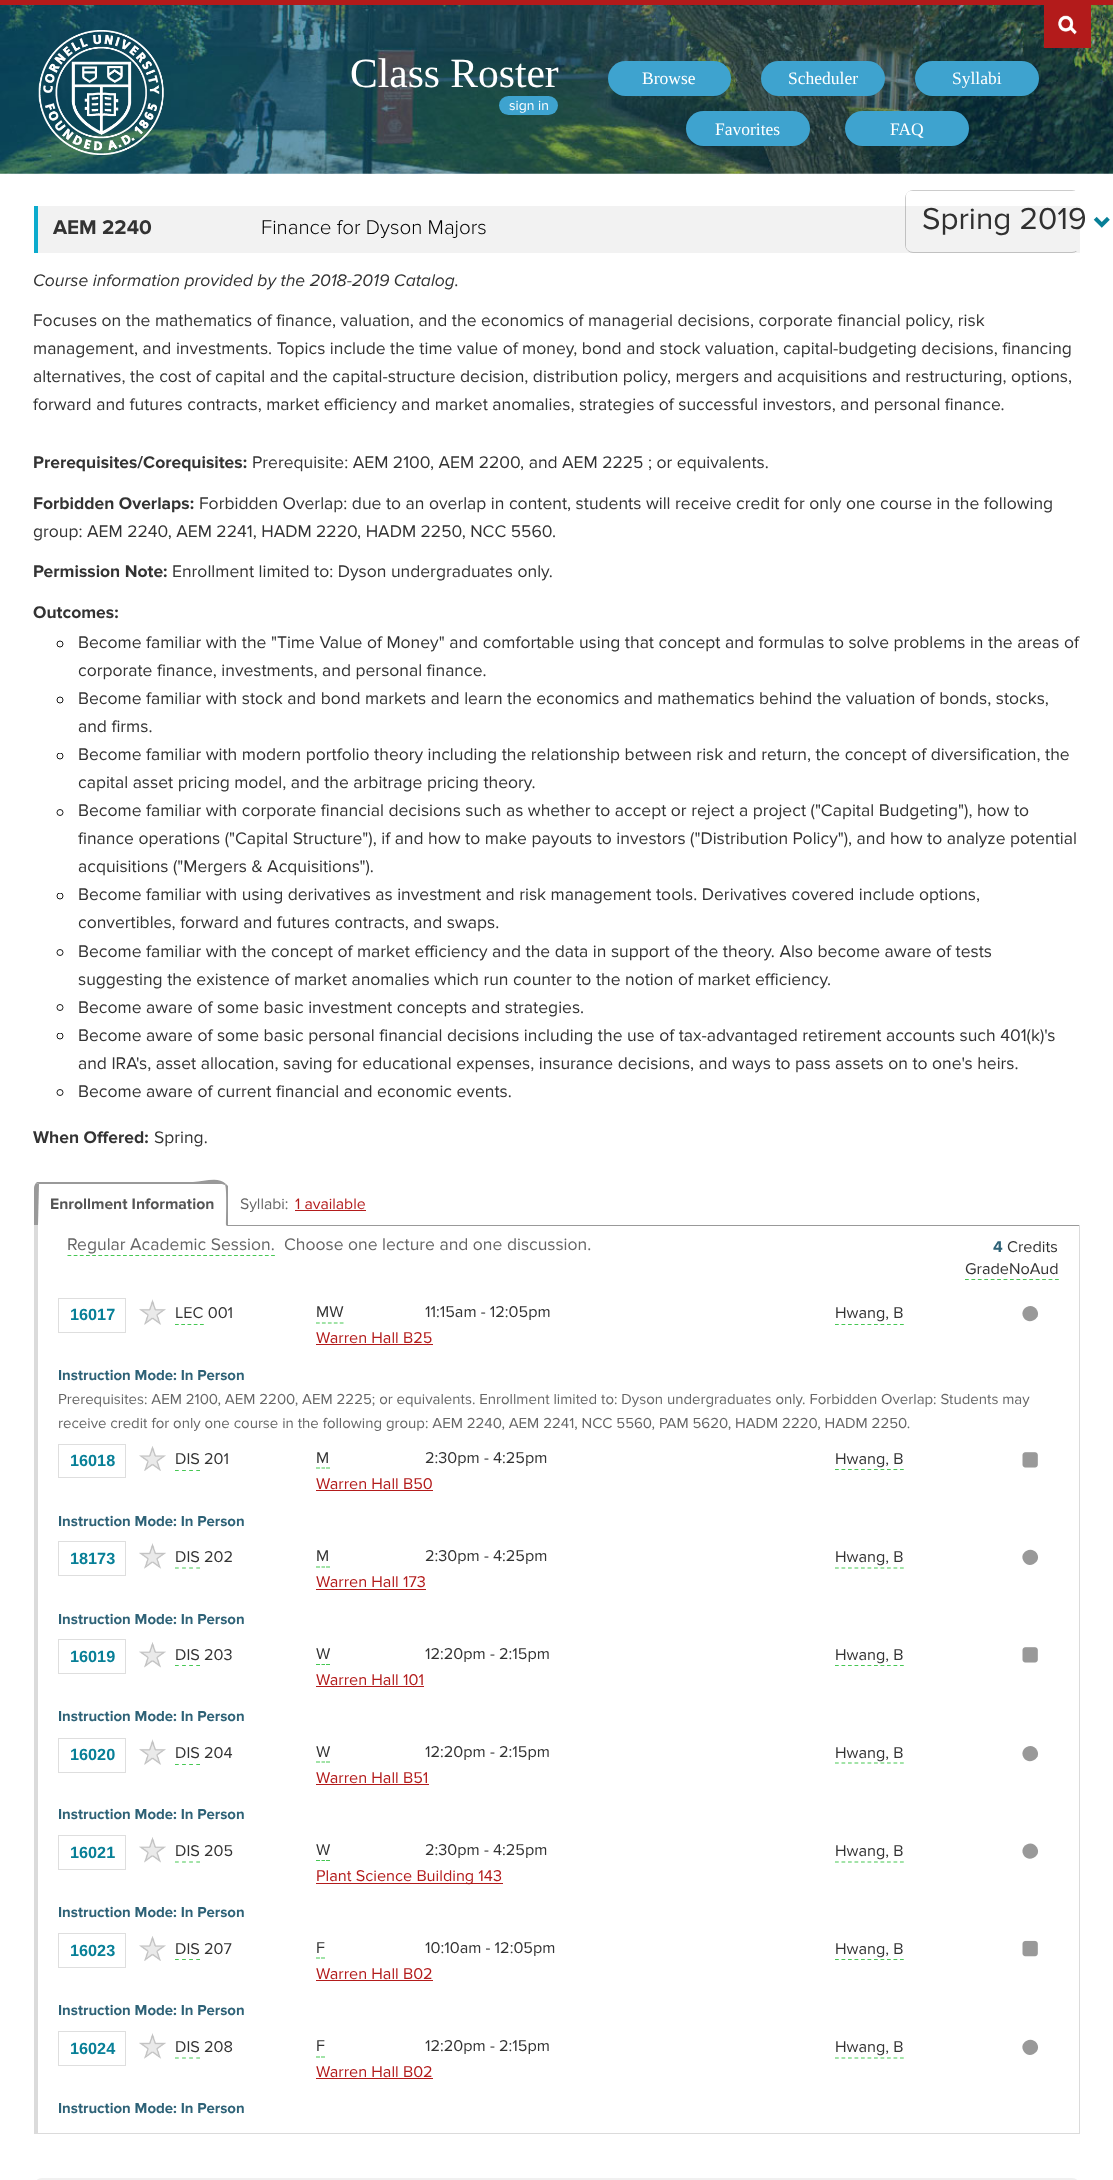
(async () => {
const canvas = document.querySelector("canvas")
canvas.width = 1113
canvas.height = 2180
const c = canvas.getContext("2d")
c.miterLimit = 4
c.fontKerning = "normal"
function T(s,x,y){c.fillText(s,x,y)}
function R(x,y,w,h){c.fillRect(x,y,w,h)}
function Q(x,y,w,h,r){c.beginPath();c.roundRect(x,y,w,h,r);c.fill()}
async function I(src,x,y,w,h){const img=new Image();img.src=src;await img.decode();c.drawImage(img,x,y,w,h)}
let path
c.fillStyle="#fff"
R(0,0,1113,2180)
await I("1.png",0,5,1113,169)
c.fillStyle="#b31b1b"
R(0,0,1113,5)
await I("2.png",38,30,126,125)
c.font="41.5px Liberation Serif"
c.fillStyle="#fff"
T("Class Roster",350,87)
c.fillStyle="#3ea3cf"
Q(499,96,59,19,9.5)
c.font="14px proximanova"
c.fillStyle="#fff"
T("sign in",509,110)
c.fillStyle="#3ea3cf"
Q(608,61,123,35,17.5)
c.font="17.5px Liberation Serif"
c.fillStyle="#fff"
T("Browse",642,84)
c.fillStyle="#3ea3cf"
Q(761,61,124,35,17.5)
c.fillStyle="#fff"
T("Scheduler",788,84)
c.fillStyle="#3ea3cf"
Q(915,61,124,35,17.5)
c.fillStyle="#fff"
T("Syllabi",952,84)
c.fillStyle="#3ea3cf"
Q(686,111,124,35,17.5)
c.fillStyle="#fff"
T("Favorites",715,135)
c.fillStyle="#3ea3cf"
Q(845,111,124,35,17.5)
c.fillStyle="#fff"
T("FAQ",890,135)
c.fillStyle="#b31b1b"
R(1044,5,47,43)
await I("3.png",1058,15,19,20)
c.beginPath()
c.roundRect(905.5,190.5,174,62,7.5)
c.strokeStyle="#ccc"
c.stroke()
c.fillStyle="#fff"
Q(906,191,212,60,5)
c.font="31.5px proximanova"
c.fillStyle="#333"
T("Spring 2019",922,229)
await I("4.png",1093,216,17,12)
c.fillStyle="#0000000d"
R(38,206,1042,47)
c.fillStyle="#0cabcd"
R(34,206,4,47)
c.font="bold 20.6px proximanova"
c.fillStyle="#333"
T("AEM 2240",53,234)
c.font="300 20.6px proximanova"
c.fillStyle="#000"
T("Finance for Dyson Majors",261,234)
c.font="italic 17.5px proximanova"
c.fillStyle="#333"
T("Course information provided by the 2018-2019 Catalog.",33,286)
c.font="17.5px proximanova"
T("Focuses on the mathematics of finance, valuation, and the economics of managerial decisions, corporate financial policy, risk",33,326)
T("management, and investments. Topics include the time value of money, bond and stock valuation, capital-budgeting decisions, financing",33,354)
T("alternatives, the cost of capital and the capital-structure decision, distribution policy, mergers and acquisitions and restructuring, options,",33,382)
T("forward and futures contracts, market efficiency and market anomalies, strategies of successful investors, and personal finance.",33,410)
c.font="bold 17.5px proximanova"
T("Prerequisites/Corequisites:",33,468)
c.font="17.5px proximanova"
T("Prerequisite: AEM 2100, AEM 2200, and AEM 2225 ; or equivalents.",252,468)
c.font="bold 17.5px proximanova"
T("Forbidden Overlaps:",33,509)
c.font="17.5px proximanova"
T("Forbidden Overlap: due to an overlap in content, students will receive credit for only one course in the following",199,509)
T("group: AEM 2240, AEM 2241, HADM 2220, HADM 2250, NCC 5560.",33,537)
c.font="bold 17.5px proximanova"
T("Permission Note:",33,577)
c.font="17.5px proximanova"
T("Enrollment limited to: Dyson undergraduates only.",172,577)
c.font="bold 17.5px proximanova"
T("Outcomes:",33,618)
c.beginPath()
c.arc(60,644,3,0,7)
c.strokeStyle="#000"
c.lineWidth=0.9
c.stroke()
c.font="17.5px proximanova"
T("Become familiar with the \"Time Value of Money\" and comfortable using that concept and formulas to solve problems in the areas of",78,648)
T("corporate finance, investments, and personal finance.",78,676)
c.beginPath()
c.arc(60,700,3,0,7)
c.stroke()
T("Become familiar with stock and bond markets and learn the economics and mathematics behind the valuation of bonds, stocks,",78,704)
T("and firms.",78,732)
c.save()
c.beginPath()
c.rect(56,753,8,7)
c.clip()
c.beginPath()
c.arc(60,756,3,0,7)
c.stroke()
c.restore()
T("Become familiar with modern portfolio theory including the relationship between risk and return, the concept of diversification, the",78,760)
T("capital asset pricing model, and the arbitrage pricing theory.",78,788)
c.beginPath()
c.arc(60,812.5,3,0,7)
c.stroke()
T("Become familiar with corporate financial decisions such as whether to accept or reject a project (\"Capital Budgeting\"), how to",78,816)
T("finance operations (\"Capital Structure\"), if and how to make payouts to investors (\"Distribution Policy\"), and how to analyze potential",78,844)
T("acquisitions (\"Mergers & Acquisitions\").",78,872)
c.save()
c.beginPath()
c.rect(56,893,8,7)
c.clip()
c.beginPath()
c.arc(60,896,3,0,7)
c.stroke()
c.restore()
T("Become familiar with using derivatives as investment and risk management tools. Derivatives covered include options,",78,900)
T("convertibles, forward and futures contracts, and swaps.",78,928)
c.beginPath()
c.arc(60,952.5,3,0,7)
c.stroke()
T("Become familiar with the concept of market efficiency and the data in support of the theory. Also become aware of tests",78,957)
T("suggesting the existence of market anomalies which run counter to the notion of market efficiency.",78,985)
c.beginPath()
c.arc(60,1007.5,3,0,7)
c.stroke()
T("Become aware of some basic investment concepts and strategies.",78,1013)
c.save()
c.beginPath()
c.rect(56,1033,8,7)
c.clip()
c.beginPath()
c.arc(60,1036,3,0,7)
c.stroke()
c.restore()
T("Become aware of some basic personal financial decisions including the use of tax-advantaged retirement accounts such 401(k)'s",78,1041)
T("and IRA's, asset allocation, saving for educational expenses, insurance decisions, and ways to pass assets on to one's heirs.",78,1069)
c.beginPath()
c.arc(60,1092.5,3,0,7)
c.stroke()
T("Become aware of current financial and economic events.",78,1097)
c.font="bold 17.5px proximanova"
T("When Offered:",33,1143)
c.font="17.5px proximanova"
T("Spring.",154,1143)
c.fillStyle="#999"
R(226,1225,854,1)
path = new Path2D("M39 1184l-3-1l1-1h156c11 0 25-6 33 2l-1 1l-3-1z")
c.fill(path)
path = new Path2D("M228 1226l-2-1c0-5 1-38-1-40l1-1l2 2z")
c.fill(path)
c.fillStyle="#fff"
path = new Path2D("M227 1226h-193l4-1h188z")
c.fill(path)
c.fillStyle="#999"
path = new Path2D("M34 1226v-38c0-2 1-4 2-5l3 1l-1 41z")
c.fill(path)
c.font="bold 15.75px proximanova"
c.fillStyle="#555"
T("Enrollment Information",50,1209)
c.font="15.75px proximanova"
c.fillStyle="#666"
T("Syllabi:",240,1209)
c.fillStyle="#b31b1b"
T("1 available",295,1209)
R(295,1210,71,1)
c.fillStyle="#dbdbdb"
R(1079,1225,1,909)
R(34,2133,1046,1)
R(34,1225,4,909)
c.font="17.5px proximanova"
c.fillStyle="#666"
T("Regular Academic Session.",67,1250)
path = new Path2D("M67.5 1255.5h207.5")
c.strokeStyle="#46c753"
c.lineWidth=1.2
c.setLineDash([3.75,2.42])
c.stroke(path)
T("Choose one lecture and one discussion.",284,1250)
c.font="bold 16.25px proximanova"
c.fillStyle="#2e6277"
T("4",993,1252)
c.font="16.25px proximanova"
c.fillStyle="#333"
T("Credits",1007,1252)
T("GradeNoAud",965,1274)
path = new Path2D("M965 1279.5h94")
c.setLineDash([3.75,2.68])
c.stroke(path)
c.strokeStyle="#dedede"
c.lineWidth=1
c.setLineDash([])
c.strokeRect(58.5,1298.5,67,34)
c.font="bold 16.25px Liberation Sans"
c.fillStyle="#077f97"
T("16017",70,1320)
await I("5.png",139,1299,27,26)
c.font="16.25px proximanova"
c.fillStyle="#333"
T("LEC 001",175,1318)
path = new Path2D("M175 1324.5h29")
c.strokeStyle="#46c753"
c.lineWidth=1.2
c.setLineDash([3.75,2.5])
c.stroke(path)
T("MW",316,1317)
path = new Path2D("M316 1323h28")
c.setLineDash([3.75,2.19])
c.stroke(path)
T("11:15am - 12:05pm",425,1317)
c.fillStyle="#b31b1b"
T("Warren Hall B25",316,1343)
R(316,1344,117,1)
c.fillStyle="#333"
T("Hwang, B",835,1318)
path = new Path2D("M835 1324.5h69")
c.setLineDash([3.75,2.75])
c.stroke(path)
c.fillStyle="#999"
path = new Path2D("M1037 1310c5 8.5-8.5 16-13.5 7.5c-5-8.5 8-16.5 13.5-7.5z")
c.fill(path)
c.font="bold 15px proximanova"
c.fillStyle="#2e6277"
T("Instruction Mode: In Person",58,1380)
c.font="15px proximanova"
c.fillStyle="#666"
T("Prerequisites: AEM 2100, AEM 2200, AEM 2225; or equivalents. Enrollment limited to: Dyson undergraduates only. Forbidden Overlap: Students may",58,1404)
T("receive credit for only one course in the following group: AEM 2240, AEM 2241, NCC 5560, PAM 5620, HADM 2220, HADM 2250.",58,1428)
c.strokeStyle="#dedede"
c.lineWidth=1
c.setLineDash([])
c.strokeRect(58.5,1444.5,67,33)
c.font="bold 16.25px Liberation Sans"
c.fillStyle="#077f97"
T("16018",70,1466)
await I("6.png",139,1446,27,25)
c.font="16.25px proximanova"
c.fillStyle="#333"
T("DIS 201",175,1464)
path = new Path2D("M175 1470.5h25")
c.strokeStyle="#46c753"
c.lineWidth=1.2
c.setLineDash([3.75,3.34])
c.stroke(path)
T("M",316,1463)
path = new Path2D("M316 1468h4m1.5 0h3.5m1 0h4")
c.setLineDash([])
c.stroke(path)
T("2:30pm - 4:25pm",425,1463)
c.fillStyle="#b31b1b"
T("Warren Hall B50",316,1489)
R(316,1490,117,1)
c.fillStyle="#333"
T("Hwang, B",835,1464)
path = new Path2D("M835 1469.5h69")
c.setLineDash([3.75,2.75])
c.stroke(path)
await I("7.png",1022,1452,16,16)
c.font="bold 15px proximanova"
c.fillStyle="#2e6277"
T("Instruction Mode: In Person",58,1526)
c.strokeStyle="#dedede"
c.lineWidth=1
c.setLineDash([])
c.strokeRect(58.5,1541.5,67,34)
c.font="bold 16.25px Liberation Sans"
c.fillStyle="#077f97"
T("18173",70,1564)
await I("8.png",139,1543,27,26)
c.font="16.25px proximanova"
c.fillStyle="#333"
T("DIS 202",175,1562)
path = new Path2D("M175 1568h25")
c.strokeStyle="#46c753"
c.lineWidth=1.2
c.setLineDash([3.75,3.34])
c.stroke(path)
T("M",316,1561)
path = new Path2D("M316 1567h4m1.5 0h3.5m1 0h4")
c.setLineDash([])
c.stroke(path)
T("2:30pm - 4:25pm",425,1561)
c.fillStyle="#b31b1b"
T("Warren Hall 173",316,1587)
R(316,1589,110,1)
c.fillStyle="#333"
T("Hwang, B",835,1562)
path = new Path2D("M835 1568h69")
c.setLineDash([3.75,2.75])
c.stroke(path)
c.fillStyle="#999"
path = new Path2D("M1037 1553.5c5 8.5-8.5 16.5-13.5 7.5c-5-8.5 8-16 13.5-7.5z")
c.fill(path)
c.font="bold 15px proximanova"
c.fillStyle="#2e6277"
T("Instruction Mode: In Person",58,1624)
c.strokeStyle="#dedede"
c.lineWidth=1
c.setLineDash([])
c.strokeRect(58.5,1639.5,67,34)
c.font="bold 16.25px Liberation Sans"
c.fillStyle="#077f97"
T("16019",70,1662)
await I("9.png",139,1642,27,26)
c.font="16.25px proximanova"
c.fillStyle="#333"
T("DIS 203",175,1660)
path = new Path2D("M175 1665.5h25")
c.strokeStyle="#46c753"
c.lineWidth=1.2
c.setLineDash([3.75,3.34])
c.stroke(path)
T("W",316,1659)
path = new Path2D("M316 1664.5h4m1.5 0h3.5m1 0h4")
c.setLineDash([])
c.stroke(path)
T("12:20pm - 2:15pm",425,1659)
c.fillStyle="#b31b1b"
T("Warren Hall 101",316,1685)
R(316,1686,108,1)
c.fillStyle="#333"
T("Hwang, B",835,1660)
path = new Path2D("M835 1665.5h69")
c.setLineDash([3.75,2.75])
c.stroke(path)
await I("7.png",1022,1647,16,16)
c.font="bold 15px proximanova"
c.fillStyle="#2e6277"
T("Instruction Mode: In Person",58,1721)
c.strokeStyle="#dedede"
c.lineWidth=1
c.setLineDash([])
c.strokeRect(58.5,1738.5,67,34)
c.font="bold 16.25px Liberation Sans"
c.fillStyle="#077f97"
T("16020",70,1760)
await I("5.png",139,1739,27,26)
c.font="16.25px proximanova"
c.fillStyle="#333"
T("DIS 204",175,1758)
path = new Path2D("M175 1764.5h25")
c.strokeStyle="#46c753"
c.lineWidth=1.2
c.setLineDash([3.75,3.34])
c.stroke(path)
T("W",316,1757)
path = new Path2D("M316 1762h4m1.5 0h3.5m1 0h4")
c.setLineDash([])
c.stroke(path)
T("12:20pm - 2:15pm",425,1757)
c.fillStyle="#b31b1b"
T("Warren Hall B51",316,1783)
R(316,1784,113,1)
c.fillStyle="#333"
T("Hwang, B",835,1758)
path = new Path2D("M835 1763h69")
c.setLineDash([3.75,2.75])
c.stroke(path)
c.fillStyle="#999"
path = new Path2D("M1037 1750c5 8.5-8.5 16-13.5 7.5c-5-8.5 8-16.5 13.5-7.5z")
c.fill(path)
c.font="bold 15px proximanova"
c.fillStyle="#2e6277"
T("Instruction Mode: In Person",58,1819)
c.strokeStyle="#dedede"
c.lineWidth=1
c.setLineDash([])
c.strokeRect(58.5,1835.5,67,34)
c.font="bold 16.25px Liberation Sans"
c.fillStyle="#077f97"
T("16021",70,1858)
await I("10.png",139,1837,27,26)
c.font="16.25px proximanova"
c.fillStyle="#333"
T("DIS 205",175,1856)
path = new Path2D("M175 1862h25")
c.strokeStyle="#46c753"
c.lineWidth=1.2
c.setLineDash([3.75,3.34])
c.stroke(path)
T("W",316,1855)
path = new Path2D("M316 1860.5h4m1.5 0h3.5m1 0h4")
c.setLineDash([])
c.stroke(path)
T("2:30pm - 4:25pm",425,1855)
c.fillStyle="#b31b1b"
R(316,1883,187,1)
T("Plant Science Building 143",316,1881)
c.fillStyle="#333"
T("Hwang, B",835,1856)
path = new Path2D("M835 1862h69")
c.setLineDash([3.75,2.75])
c.stroke(path)
c.fillStyle="#999"
path = new Path2D("M1037 1847.5c5 8.5-8.5 16-13.5 7.5c-5-8.5 8-16.5 13.5-7.5z")
c.fill(path)
c.font="bold 15px proximanova"
c.fillStyle="#2e6277"
T("Instruction Mode: In Person",58,1917)
c.strokeStyle="#dedede"
c.lineWidth=1
c.setLineDash([])
c.strokeRect(58.5,1933.5,67,34)
c.font="bold 16.25px Liberation Sans"
c.fillStyle="#077f97"
T("16023",70,1956)
await I("6.png",139,1936,27,25)
c.font="16.25px proximanova"
c.fillStyle="#333"
T("DIS 207",175,1954)
path = new Path2D("M175 1959.5h25")
c.strokeStyle="#46c753"
c.lineWidth=1.2
c.setLineDash([3.75,3.34])
c.stroke(path)
T("F",316,1953)
path = new Path2D("M316 1958h4m1 0h4")
c.setLineDash([])
c.stroke(path)
T("10:10am - 12:05pm",425,1953)
c.fillStyle="#b31b1b"
T("Warren Hall B02",316,1979)
R(316,1980,117,1)
c.fillStyle="#333"
T("Hwang, B",835,1954)
path = new Path2D("M835 1959.5h69")
c.setLineDash([3.75,2.75])
c.stroke(path)
await I("11.png",1022,1940,16,17)
c.font="bold 15px proximanova"
c.fillStyle="#2e6277"
T("Instruction Mode: In Person",58,2015)
c.strokeStyle="#dedede"
c.lineWidth=1
c.setLineDash([])
c.strokeRect(58.5,2031.5,67,34)
c.font="bold 16.25px Liberation Sans"
c.fillStyle="#077f97"
T("16024",70,2054)
await I("8.png",139,2033,27,26)
c.font="16.25px proximanova"
c.fillStyle="#333"
T("DIS 208",175,2052)
path = new Path2D("M175 2058h25")
c.strokeStyle="#46c753"
c.lineWidth=1.2
c.setLineDash([3.75,3.34])
c.stroke(path)
T("F",316,2051)
path = new Path2D("M316 2057h4m1 0h4")
c.setLineDash([])
c.stroke(path)
T("12:20pm - 2:15pm",425,2051)
c.fillStyle="#b31b1b"
T("Warren Hall B02",316,2077)
R(316,2078,117,1)
c.fillStyle="#333"
T("Hwang, B",835,2052)
path = new Path2D("M835 2058h69")
c.setLineDash([3.75,2.75])
c.stroke(path)
c.fillStyle="#999"
path = new Path2D("M1037 2043.5c5 8.5-8.5 16.5-13.5 7.5c-5-8.5 8-16 13.5-7.5z")
c.fill(path)
c.font="bold 15px proximanova"
c.fillStyle="#2e6277"
T("Instruction Mode: In Person",58,2113)
c.fillStyle="#f0f0f0"
path = new Path2D("M42 2178h1030c4.5 0 8 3.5 8 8v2h-1046v-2c0-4.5 3.5-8 8-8z")
c.fill(path)
})()
